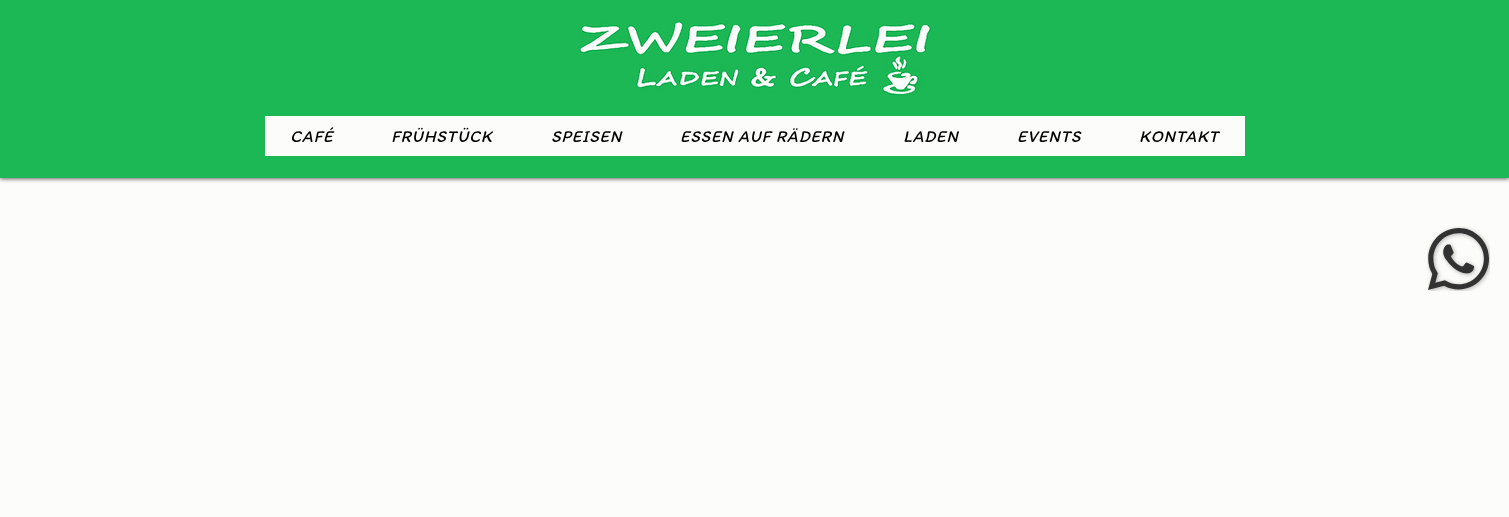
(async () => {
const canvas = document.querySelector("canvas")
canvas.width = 1509
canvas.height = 517
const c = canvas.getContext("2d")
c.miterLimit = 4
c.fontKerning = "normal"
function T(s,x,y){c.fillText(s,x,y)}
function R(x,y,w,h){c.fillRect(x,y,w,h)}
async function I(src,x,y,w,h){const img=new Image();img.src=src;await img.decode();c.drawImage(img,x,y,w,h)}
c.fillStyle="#fcfcfb"
R(0,0,1509,517)
c.fillStyle="#00000099"
c.filter="blur(2px)"
c.beginPath()
c.rect(0,1,1509,178)
c.fill()
c.filter="none"
c.fillStyle="#1cb855"
R(0,0,1509,178)
await I("1.png",579,21,352,75)
c.fillStyle="#fcfcfb"
R(265,116,980,40)
c.letterSpacing="0.8px"
c.font="italic 17px Itim"
c.fillStyle="#000"
T("CAFÉ",290,142)
T("FRÜHSTÜCK",391,142)
T("SPEISEN",551,142)
T("ESSEN AUF RÄDERN",680,142)
T("LADEN",903,142)
T("EVENTS",1017,142)
T("KONTAKT",1139,142)
await I("2.png",1427,226,63,65)
})()
